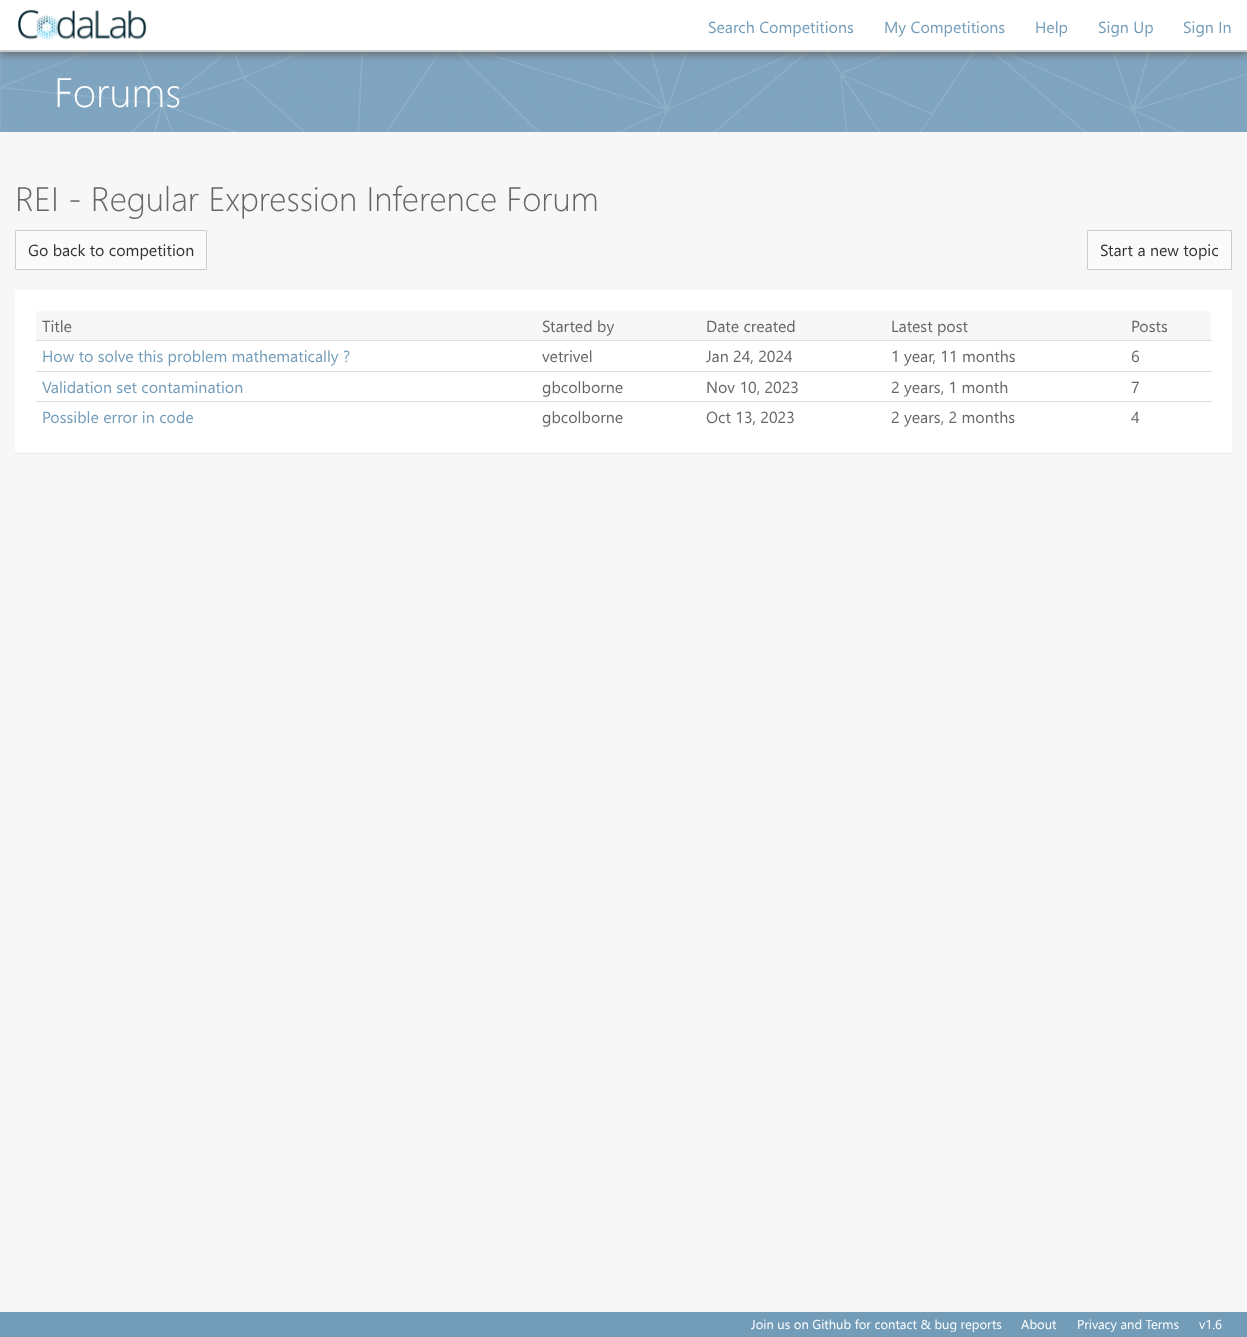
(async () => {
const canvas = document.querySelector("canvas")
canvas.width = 1247
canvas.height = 1337
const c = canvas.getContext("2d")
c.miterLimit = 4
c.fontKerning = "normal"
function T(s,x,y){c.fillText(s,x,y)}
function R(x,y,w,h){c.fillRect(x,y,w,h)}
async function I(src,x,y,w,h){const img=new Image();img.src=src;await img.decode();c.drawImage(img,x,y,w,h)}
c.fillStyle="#f7f7f7"
R(0,0,1247,1337)
await I("2.png",0,52,1247,80)
c.fillStyle="#666"
c.filter="blur(4px)"
c.beginPath()
c.rect(0,2,1247,52)
c.fill()
c.filter="none"
c.fillStyle="#fff"
R(0,0,1247,50)
c.fillStyle="#ccc"
R(0,50,1247,2)
await I("1.png",18,9,129,31)
c.font="16px Segoe UI"
c.fillStyle="#739cb9"
T("Search Competitions",708,33)
T("My Competitions",884,33)
T("Help",1035,33)
T("Sign Up",1098,33)
T("Sign In",1183,33)
c.font="300 41px Segoe UI"
c.fillStyle="#fff"
T("Forums",54,107)
c.font="300 34px Segoe UI"
c.fillStyle="#666"
T("REI - Regular Expression Inference Forum",15,211)
c.fillStyle="#fafafa"
c.beginPath()
c.rect(15.5,230.5,191,39)
c.fill()
c.strokeStyle="#ccc"
c.stroke()
c.font="16px Segoe UI"
c.fillStyle="#333"
T("Go back to competition",28,256)
c.fillStyle="#fafafa"
c.beginPath()
c.rect(1087.5,230.5,144,39)
c.fill()
c.stroke()
c.fillStyle="#333"
T("Start a new topic",1100,256)
c.fillStyle="#0000000d"
c.filter="blur(0.5px)"
c.beginPath()
c.rect(15,291,1217,163)
c.fill()
c.filter="none"
c.fillStyle="#fff"
R(15,290,1217,163)
c.fillStyle="#f7f7f7"
R(36,311,1175,29)
c.fillStyle="#666"
T("Title",42,332)
T("Started by",542,332)
T("Date created",706,332)
T("Latest post",891,332)
T("Posts",1131,332)
c.fillStyle="#739cb9"
T("How to solve this problem mathematically ?",42,362)
c.fillStyle="#666"
T("vetrivel",542,362)
T("Jan 24, 2024",706,362)
T("1 year, 11 months",891,362)
c.fillStyle="#ddd"
R(36,340,1176,1)
c.fillStyle="#666"
T("6",1131,362)
c.fillStyle="#739cb9"
T("Validation set contamination",42,393)
c.fillStyle="#666"
T("gbcolborne",542,393)
T("Nov 10, 2023",706,393)
T("2 years, 1 month",891,393)
c.fillStyle="#ddd"
R(36,371,1176,1)
c.fillStyle="#666"
T("7",1131,393)
c.fillStyle="#739cb9"
T("Possible error in code",42,423)
c.fillStyle="#666"
T("gbcolborne",542,423)
T("Oct 13, 2023",706,423)
T("2 years, 2 months",891,423)
c.fillStyle="#ddd"
R(36,401,1176,1)
c.fillStyle="#666"
T("4",1131,423)
c.fillStyle="#739cb9"
R(0,1312,1247,25)
c.font="13px Segoe UI"
c.fillStyle="#fff"
T("Join us on Github for contact & bug reports",751,1329)
T("About",1021,1329)
T("Privacy and Terms",1077,1329)
T("v1.6",1199,1329)
})()
